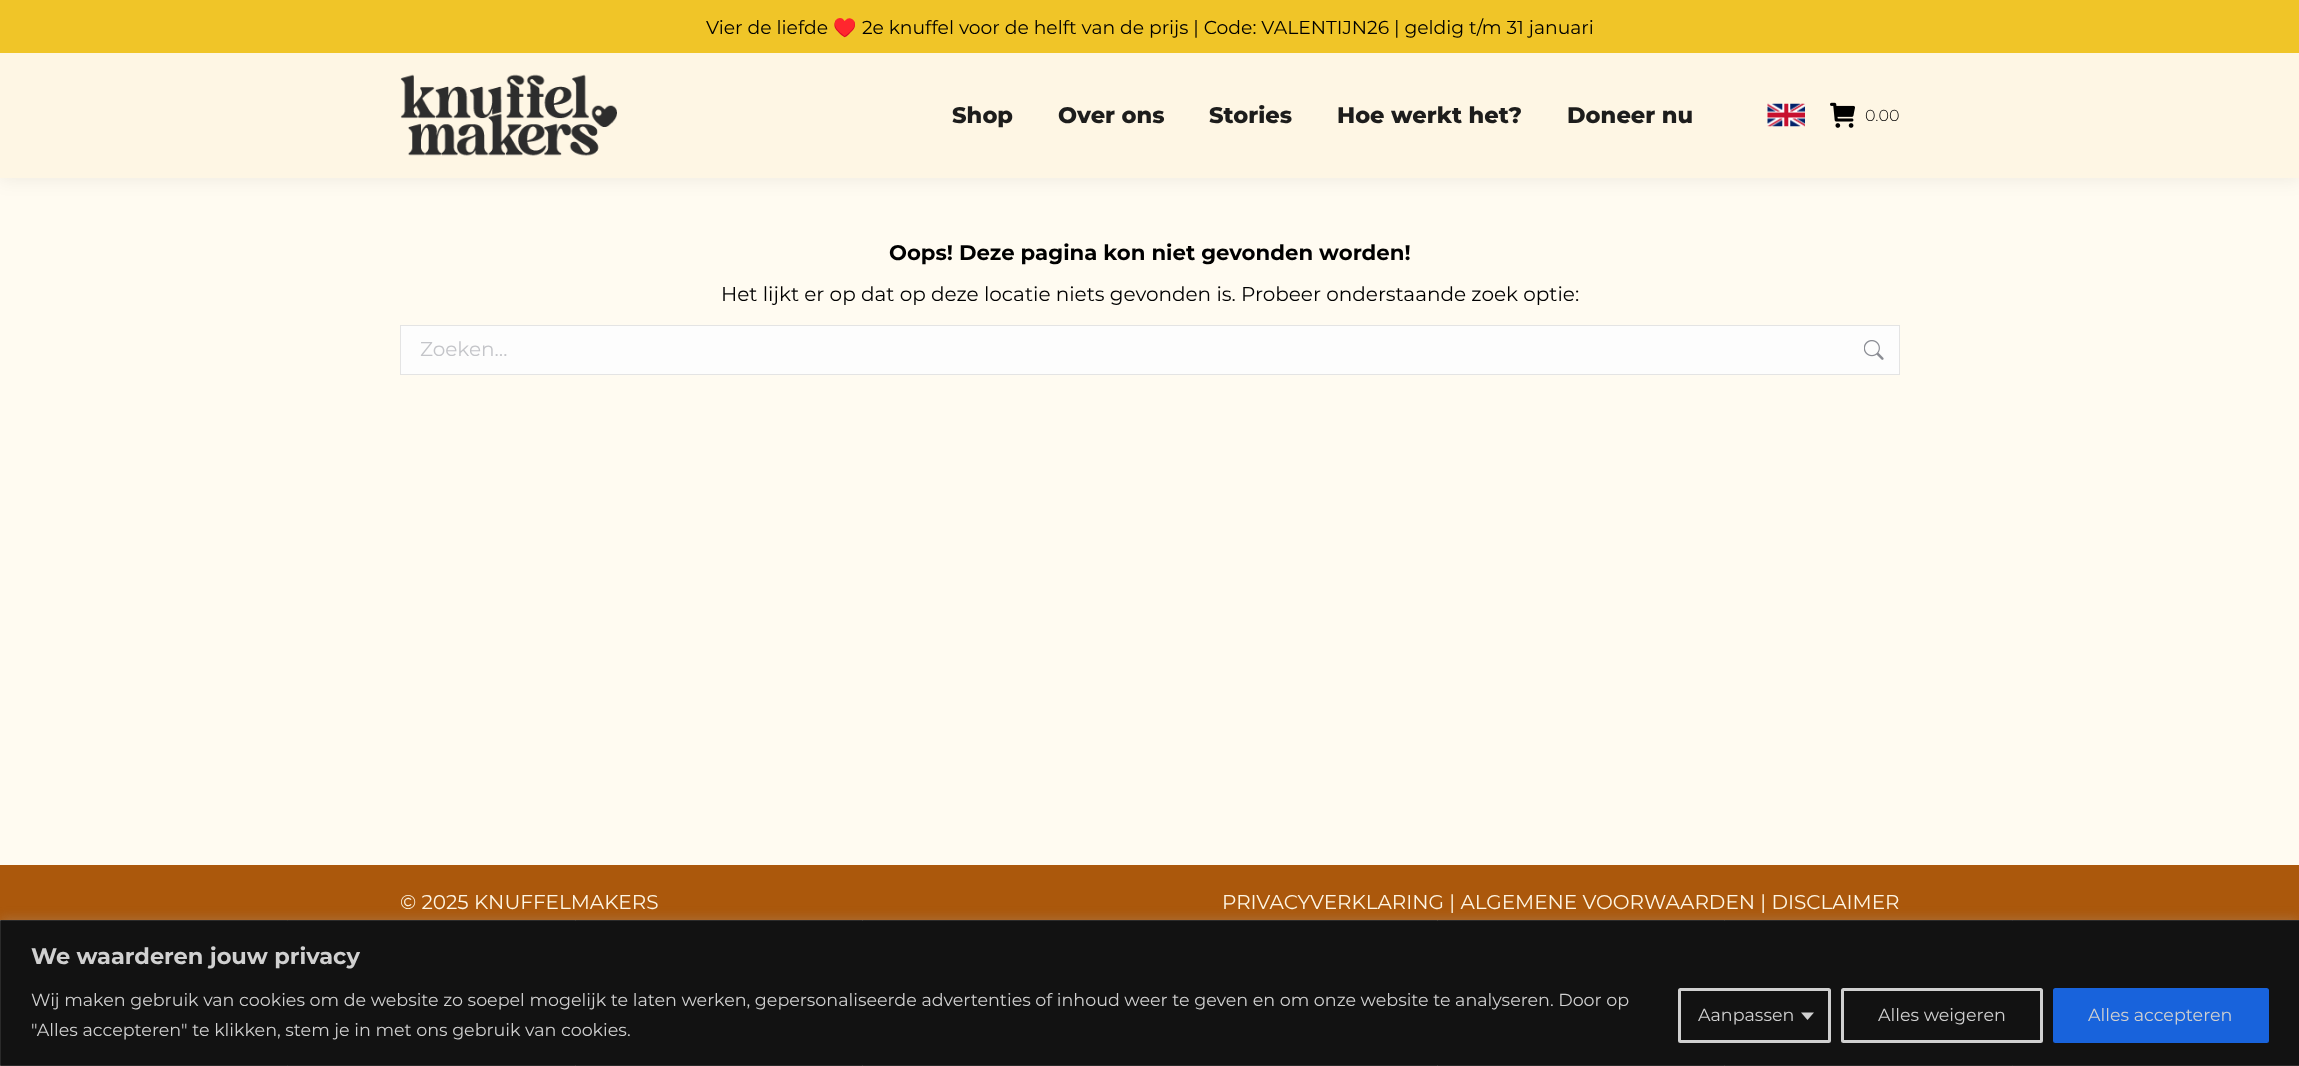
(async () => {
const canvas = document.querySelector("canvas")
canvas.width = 2299
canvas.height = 1066
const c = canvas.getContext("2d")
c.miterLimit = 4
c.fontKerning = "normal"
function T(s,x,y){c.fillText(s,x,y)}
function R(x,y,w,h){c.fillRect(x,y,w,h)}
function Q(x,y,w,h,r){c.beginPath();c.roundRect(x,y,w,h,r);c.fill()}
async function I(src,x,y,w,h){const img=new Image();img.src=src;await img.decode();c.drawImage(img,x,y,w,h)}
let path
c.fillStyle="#fffbf1"
R(0,0,2299,1066)
c.fillStyle="#00000012"
c.filter="blur(9.5px)"
c.beginPath()
c.rect(-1,-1,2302,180)
c.fill()
c.filter="none"
c.fillStyle="#fef6e4"
R(0,53,2299,125)
c.fillStyle="#f0c528"
R(0,0,2299,53)
c.font="18.75px Montserrat"
c.fillStyle="#000"
T("Vier de liefde",706,34)
c.font="18.75px Noto Color Emoji"
T("♥️",833,34)
c.font="18.75px Montserrat"
T("2e knuffel voor de helft van de prijs | Code: VALENTIJN26 | geldig t/m 31 januari",862,34)
await I("1.png",400,74,217,82)
c.font="800 22.5px Montserrat"
c.fillStyle="#1d1d1c"
T("Shop",952,123)
T("Over ons",1058,123)
T("Stories",1209,123)
T("Hoe werkt het?",1337,123)
T("Doneer nu",1567,123)
await I("2.png",1767,103,38,24)
await I("3.png",1830,102,25,26)
c.font="300 16px Montserrat"
c.fillStyle="#000"
T("0.00",1865,121)
c.font="bold 21.25px Montserrat"
T("Oops! Deze pagina kon niet gevonden worden!",889,260)
c.font="20px Montserrat"
T("Het lijkt er op dat op deze locatie niets gevonden is. Probeer onderstaande zoek optie:",721,301)
c.fillStyle="#fdfdfd"
Q(400,325,1500,50,1)
c.strokeStyle="#3333331f"
c.strokeRect(400.5,325.5,1499,49)
c.fillStyle="#c4c5c9"
T("Zoeken…",420,356)
await I("4.png",1864,340,20,20)
c.fillStyle="#ab580c"
R(0,865,2299,55)
c.fillStyle="#fef6e4"
T("© 2025 KNUFFELMAKERS",400,909)
T("PRIVACYVERKLARING | ALGEMENE VOORWAARDEN | DISCLAIMER",1222,909)
c.fillStyle="#acabab4d"
c.filter="blur(6px)"
c.beginPath()
c.rect(0,919,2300,146)
c.fill()
c.filter="none"
c.fillStyle="#121212"
c.beginPath()
c.rect(.5,920.5,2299,145)
c.fill()
c.strokeStyle="#2a2a2a"
c.stroke()
c.font="bold 22.5px Montserrat"
c.fillStyle="#d0d0d0"
T("We waarderen jouw privacy",31,964)
c.font="17.5px Montserrat"
T("Wij maken gebruik van cookies om de website zo soepel mogelijk te laten werken, gepersonaliseerde advertenties of inhoud weer te geven en om onze website te analyseren. Door op",31,1006)
T("\"Alles accepteren\" te klikken, stem je in met ons gebruik van cookies.",31,1036)
c.beginPath()
c.roundRect(1679.5,989.5,150,52,1)
c.strokeStyle="#d0d0d0"
c.lineWidth=3
c.stroke()
T("Aanpassen",1698,1021)
path = new Path2D("M1801 1012.5h13l-6.5 7.5z")
c.fill(path)
c.beginPath()
c.roundRect(1842.5,989.5,199,52,1)
c.stroke()
T("Alles weigeren",1878,1021)
c.fillStyle="#1863dc"
c.beginPath()
c.roundRect(2054.5,989.5,213,52,1)
c.fill()
c.strokeStyle="#1863dc"
c.stroke()
c.fillStyle="#d0d0d0"
T("Alles accepteren",2088,1021)
})()
